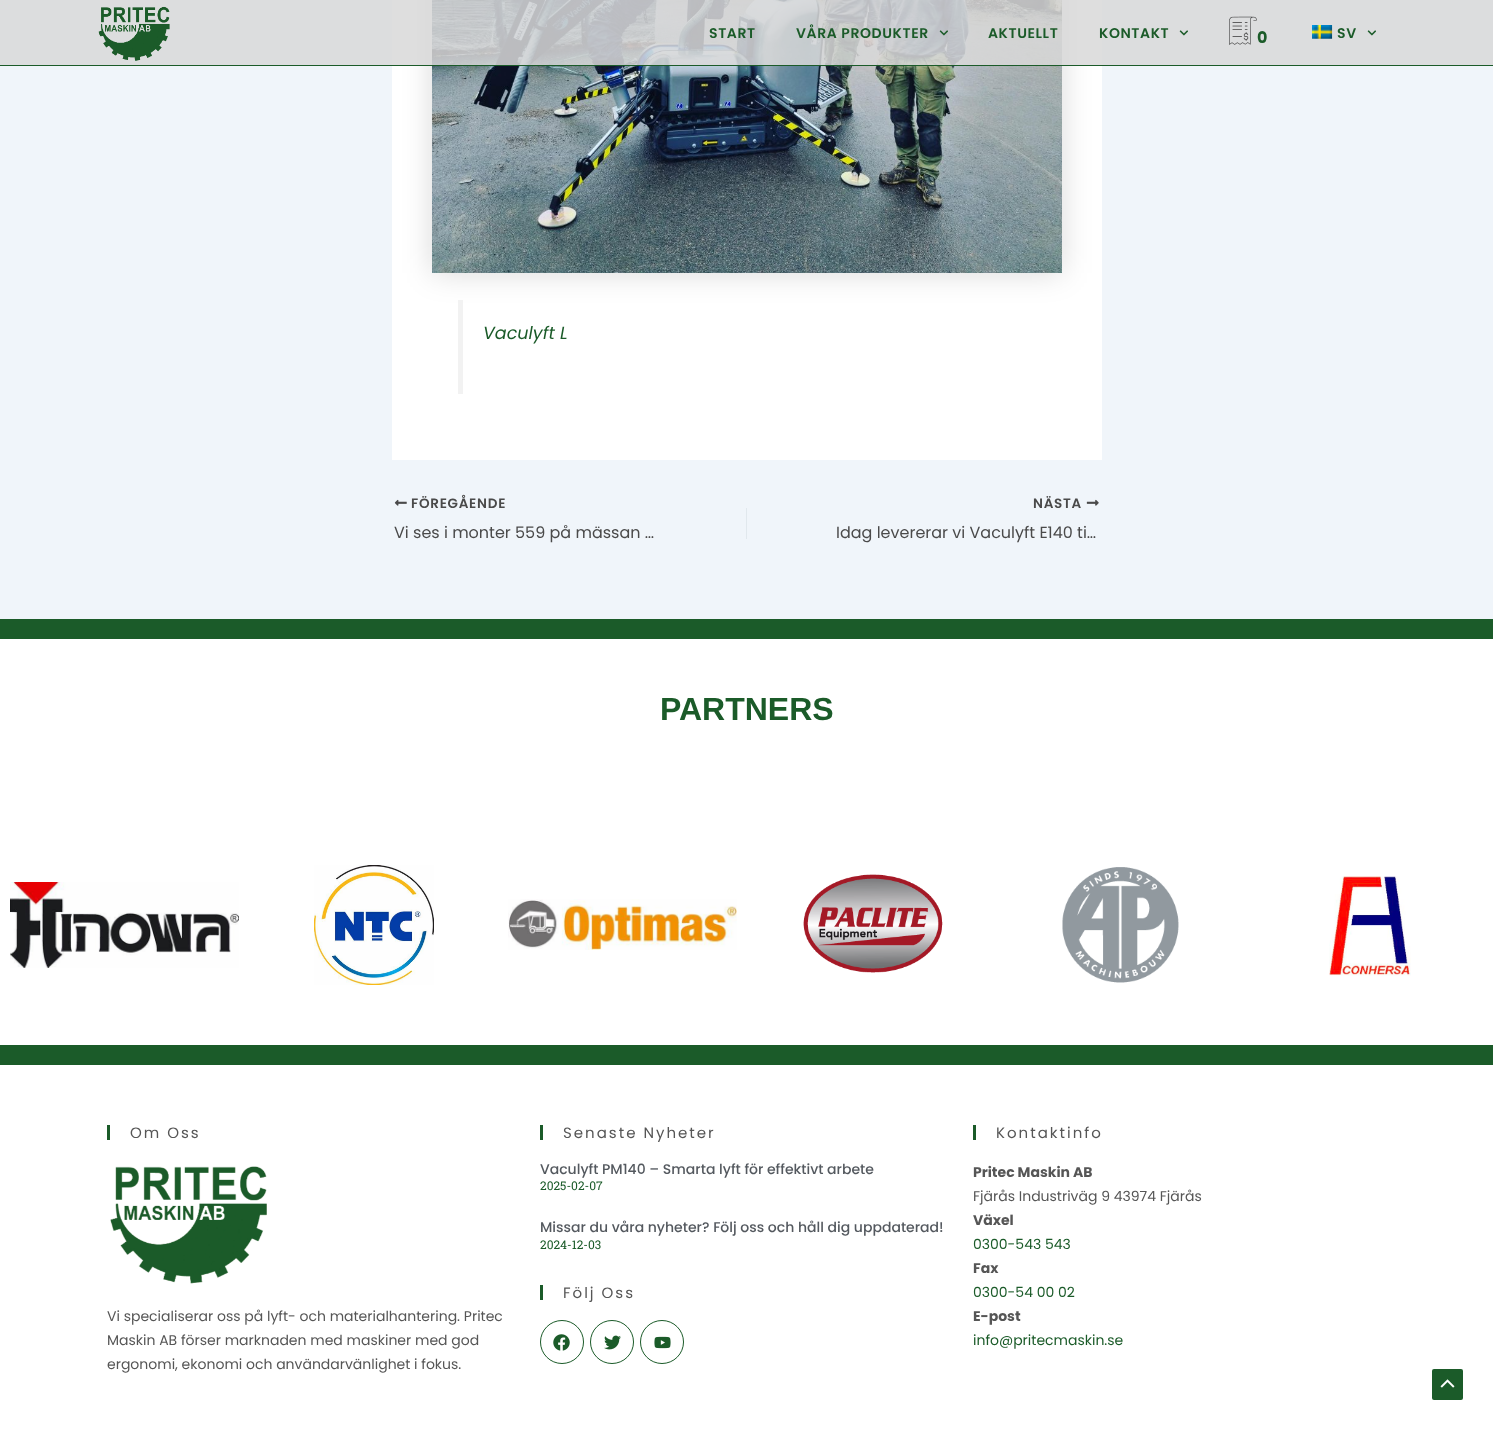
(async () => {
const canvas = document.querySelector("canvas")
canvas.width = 1493
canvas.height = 1430
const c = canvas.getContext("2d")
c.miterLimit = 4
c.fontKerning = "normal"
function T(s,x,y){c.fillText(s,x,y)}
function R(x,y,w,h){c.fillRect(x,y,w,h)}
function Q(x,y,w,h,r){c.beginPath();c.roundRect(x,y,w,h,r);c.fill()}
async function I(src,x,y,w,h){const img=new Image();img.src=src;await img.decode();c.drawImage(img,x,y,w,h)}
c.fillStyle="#f0f5fa"
R(0,0,1493,1430)
c.fillStyle="#fff"
R(392,0,710,460)
c.fillStyle="#00000026"
c.filter="blur(15px)"
c.beginPath()
c.rect(432,-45,630,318)
c.fill()
c.filter="none"
await I("6.png",432,0,630,273)
c.fillStyle="#d8d8d8db"
R(0,0,1493,65)
c.fillStyle="#1b5b29"
R(0,65,1493,1)
await I("1.png",98,6,72,55)
c.letterSpacing="0.6px"
c.font="600 14px Poppins"
T("START",709,38)
T("VÅRA PRODUKTER",796,38)
await I("2.png",939,30,9,6)
T("AKTUELLT",988,38)
T("KONTAKT",1099,38)
await I("3.png",1179,30,9,6)
await I("4.png",1229,16,28,29)
c.letterSpacing="0px"
c.font="bold 16px Poppins"
T("0",1257,43)
await I("5.png",1312,25,21,14)
c.letterSpacing="0.6px"
c.font="600 14px Poppins"
T("SV",1337,38)
await I("3.png",1367,30,9,6)
c.fillStyle="#f2f2f2"
R(458,300,5,94)
c.letterSpacing="0px"
c.font="italic 17.5px Poppins"
c.fillStyle="#1b5b29"
T("Vaculyft L",483,339)
await I("7.png",394,499,13,7)
c.letterSpacing="0.75px"
c.font="600 13.5px Poppins"
c.fillStyle="#4a4a4a"
T("FÖREGÅENDE",411,508)
c.letterSpacing="0px"
c.font="16px Poppins"
T("Vi ses i monter 559 på mässan …",394,538)
c.fillStyle="#e1e8ed"
R(746,508,1,31)
c.letterSpacing="0.75px"
c.font="600 13.5px Poppins"
c.fillStyle="#4a4a4a"
T("NÄSTA",1033,508)
await I("8.png",1086,499,13,7)
c.letterSpacing="0px"
c.font="16px Poppins"
T("Idag levererar vi Vaculyft E140 ti…",836,538)
c.fillStyle="#1b5b29"
R(0,619,1493,20)
c.fillStyle="#fff"
R(0,639,1493,406)
c.font="bold 32px Liberation Sans"
c.fillStyle="#1b5b29"
T("PARTNERS",660,720)
await I("9.png",10,882,229,86)
await I("10.png",314,865,120,120)
await I("11.png",508,899,229,51)
await I("12.png",803,874,140,99)
await I("13.png",1062,867,117,116)
await I("14.png",1329,876,82,100)
R(0,1045,1493,20)
c.fillStyle="#fff"
R(0,1065,1493,365)
c.fillStyle="#1b5b29"
R(107,1125,3,15)
c.letterSpacing="2px"
c.font="15px Poppins"
c.fillStyle="#565656"
T("Om Oss",130,1138)
await I("15.png",110,1166,157,118)
c.letterSpacing="0px"
c.font="14px Poppins"
T("Vi specialiserar oss på lyft- och materialhantering. Pritec",107,1321)
T("Maskin AB förser marknaden med maskiner med god",107,1345)
T("ergonomi, ekonomi och användarvänlighet i fokus.",107,1369)
c.fillStyle="#1b5b29"
R(540,1125,3,15)
c.letterSpacing="2px"
c.font="15px Poppins"
c.fillStyle="#565656"
T("Senaste Nyheter",563,1138)
c.letterSpacing="0px"
c.font="500 14px Poppins"
c.fillStyle="#54595f"
T("Vaculyft PM140 – Smarta lyft för effektivt arbete",540,1174)
c.font="12px Roboto Slab"
c.fillStyle="#1b5b29"
T("2025-02-07",540,1190)
c.font="500 14px Poppins"
c.fillStyle="#54595f"
T("Missar du våra nyheter? Följ oss och håll dig uppdaterad!",540,1232)
c.font="12px Roboto Slab"
c.fillStyle="#1b5b29"
T("2024-12-03",540,1249)
R(540,1285,3,15)
c.letterSpacing="2px"
c.font="15px Poppins"
c.fillStyle="#565656"
T("Följ Oss",563,1298)
c.beginPath()
c.arc(562,1342,21.5,0,7)
c.strokeStyle="#1b5b29"
c.stroke()
await I("16.png",553,1334,17,17)
c.beginPath()
c.arc(612,1342,21.5,0,7)
c.stroke()
await I("17.png",604,1335,17,15)
c.beginPath()
c.arc(662,1342,21.5,0,7)
c.stroke()
await I("18.png",654,1336,17,13)
c.fillStyle="#1b5b29"
R(973,1125,3,15)
c.fillStyle="#565656"
T("Kontaktinfo",996,1138)
c.letterSpacing="0px"
c.font="bold 14px Poppins"
T("Pritec Maskin AB",973,1177)
c.font="14px Poppins"
T("Fjärås Industriväg 9 43974 Fjärås",973,1201)
c.font="bold 14px Poppins"
T("Växel",973,1225)
c.font="14px Poppins"
c.fillStyle="#1b5b29"
T("0300-543 543",973,1249)
c.font="bold 14px Poppins"
c.fillStyle="#565656"
T("Fax",973,1273)
c.font="14px Poppins"
c.fillStyle="#1b5b29"
T("0300-54 00 02",973,1297)
c.font="bold 14px Poppins"
c.fillStyle="#565656"
T("E-post",973,1321)
c.font="14px Poppins"
c.fillStyle="#1b5b29"
T("info@pritecmaskin.se",973,1345)
Q(1432,1369,31,31,2)
await I("19.png",1440,1379,15,9)
})()
